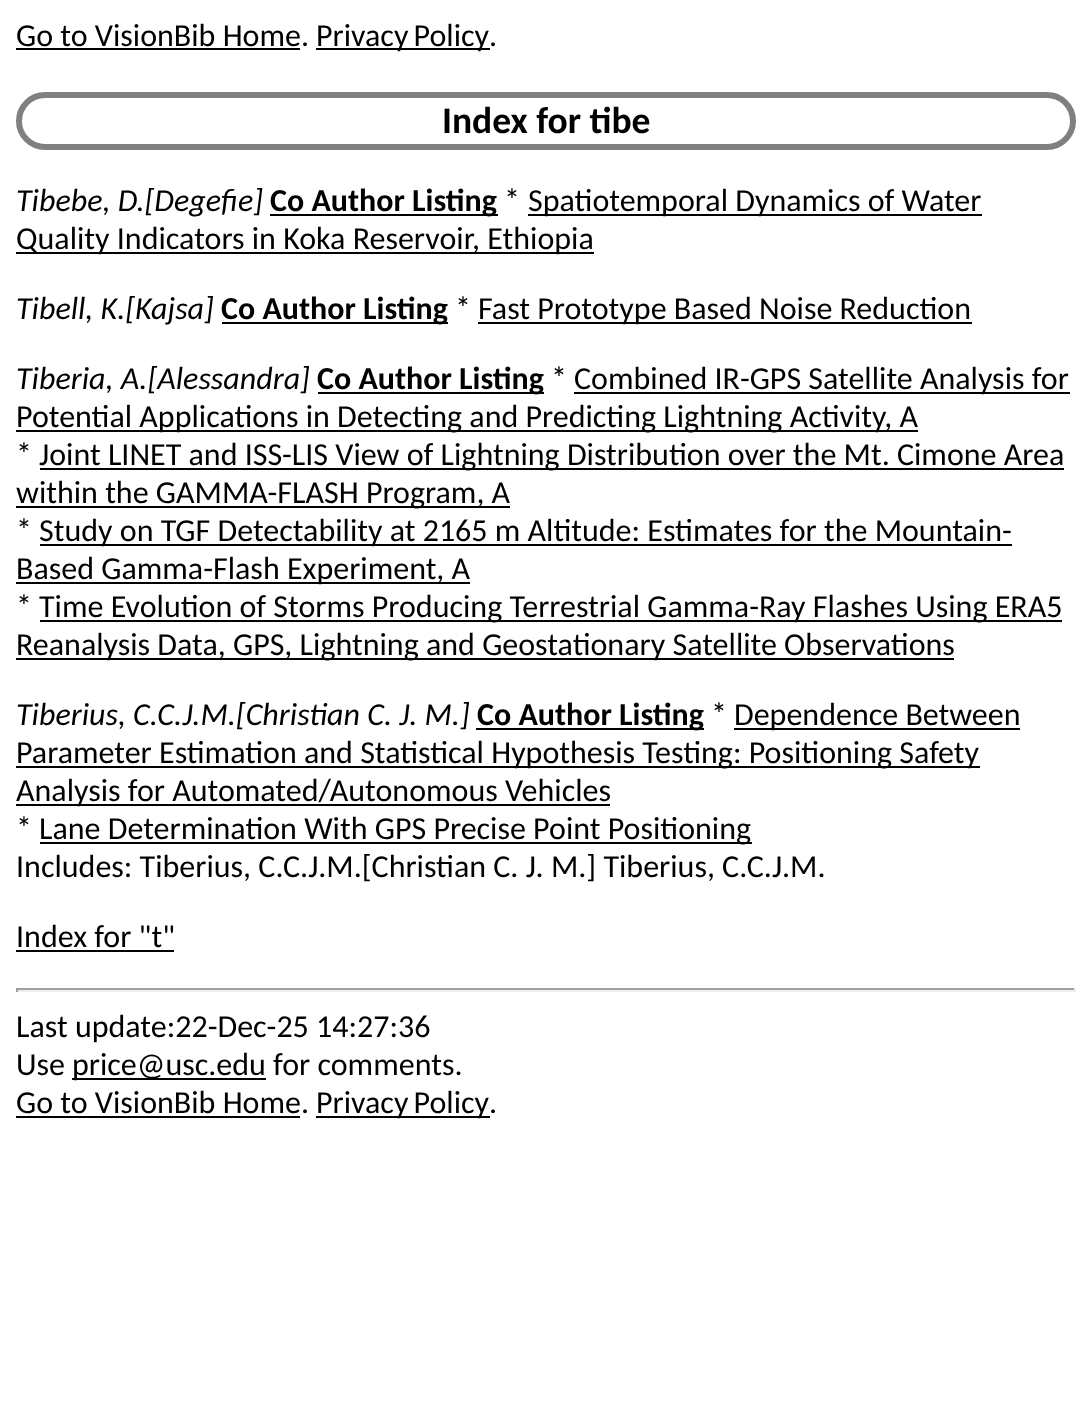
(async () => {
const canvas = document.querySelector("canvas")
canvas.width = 1092
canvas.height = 1428
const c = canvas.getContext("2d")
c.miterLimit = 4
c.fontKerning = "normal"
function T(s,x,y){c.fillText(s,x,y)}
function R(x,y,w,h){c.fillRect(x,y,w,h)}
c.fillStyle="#fff"
R(0,0,1092,1428)
c.font="32px Carlito"
c.fillStyle="#000"
T("Go to VisionBib Home.",16,46)
R(16,48,284,2)
R(316,48,174,2)
c.wordSpacing="-2px"
T("Privacy Policy",316,46)
c.wordSpacing="0px"
T(".",489,46)
c.beginPath()
c.roundRect(19,95,1054,52,26)
c.strokeStyle="#808080"
c.lineWidth=6
c.stroke()
c.font="bold 37.5px Carlito"
T("Index for tibe",442,133)
c.font="italic 32px Carlito"
T("Tibebe, D.[Degefie]",16,211)
R(270,214,228,2)
c.font="bold 32px Carlito"
T("Co Author Listing",270,211)
c.font="32px Carlito"
T("*",504,211)
R(528,214,454,2)
T("Spatiotemporal Dynamics of Water",528,211)
R(16,252,578,2)
T("Quality Indicators in Koka Reservoir, Ethiopia",16,249)
c.font="italic 32px Carlito"
T("Tibell, K.[Kajsa]",16,319)
R(222,322,226,2)
c.font="bold 32px Carlito"
T("Co Author Listing",221,319)
c.font="32px Carlito"
T("*",455,319)
R(478,322,494,2)
T("Fast Prototype Based Noise Reduction",478,319)
c.font="italic 32px Carlito"
T("Tiberia, A.[Alessandra]",16,389)
R(318,392,226,2)
c.font="bold 32px Carlito"
T("Co Author Listing",317,389)
c.font="32px Carlito"
T("*",551,389)
R(574,392,496,2)
T("Combined IR-GPS Satellite Analysis for",574,389)
R(16,430,902,2)
T("Potential Applications in Detecting and Predicting Lightning Activity, A",16,427)
T("*",16,465)
R(40,468,1024,2)
T("Joint LINET and ISS-LIS View of Lightning Distribution over the Mt. Cimone Area",39,465)
R(16,506,494,2)
T("within the GAMMA-FLASH Program, A",16,503)
T("*",16,541)
R(40,544,972,2)
T("Study on TGF Detectability at 2165 m Altitude: Estimates for the Mountain-",39,541)
R(16,582,454,2)
T("Based Gamma-Flash Experiment, A",16,579)
T("*",16,617)
R(40,620,1022,2)
T("Time Evolution of Storms Producing Terrestrial Gamma-Ray Flashes Using ERA5",39,617)
R(16,658,938,2)
T("Reanalysis Data, GPS, Lightning and Geostationary Satellite Observations",16,655)
c.font="italic 32px Carlito"
T("Tiberius, C.C.J.M.[Christian C. J. M.]",16,725)
R(476,728,228,2)
c.font="bold 32px Carlito"
T("Co Author Listing",477,725)
c.font="32px Carlito"
T("*",711,725)
R(734,728,286,2)
T("Dependence Between",734,725)
R(16,766,964,2)
T("Parameter Estimation and Statistical Hypothesis Testing: Positioning Safety",16,763)
R(16,804,594,2)
T("Analysis for Automated/Autonomous Vehicles",16,801)
T("*",16,839)
R(40,842,712,2)
T("Lane Determination With GPS Precise Point Positioning",39,839)
T("Includes: Tiberius, C.C.J.M.[Christian C. J. M.] Tiberius, C.C.J.M.",16,877)
T("Index for \"t\"",16,947)
R(16,950,158,2)
c.fillStyle="#9f9f9f"
R(16,988,1060,2)
c.fillStyle="#eee"
R(1074,988,2,4)
R(16,990,1060,2)
c.fillStyle="#9f9f9f"
R(16,988,2,4)
c.fillStyle="#000"
T("Last update:22-Dec-25 14:27:36",16,1037)
T("Use",16,1075)
R(72,1078,194,2)
T("price@usc.edu for comments.",72,1075)
T("Go to VisionBib Home.",16,1113)
R(16,1116,284,2)
R(316,1116,174,2)
c.wordSpacing="-2px"
T("Privacy Policy",316,1113)
c.wordSpacing="0px"
T(".",489,1113)
})()
